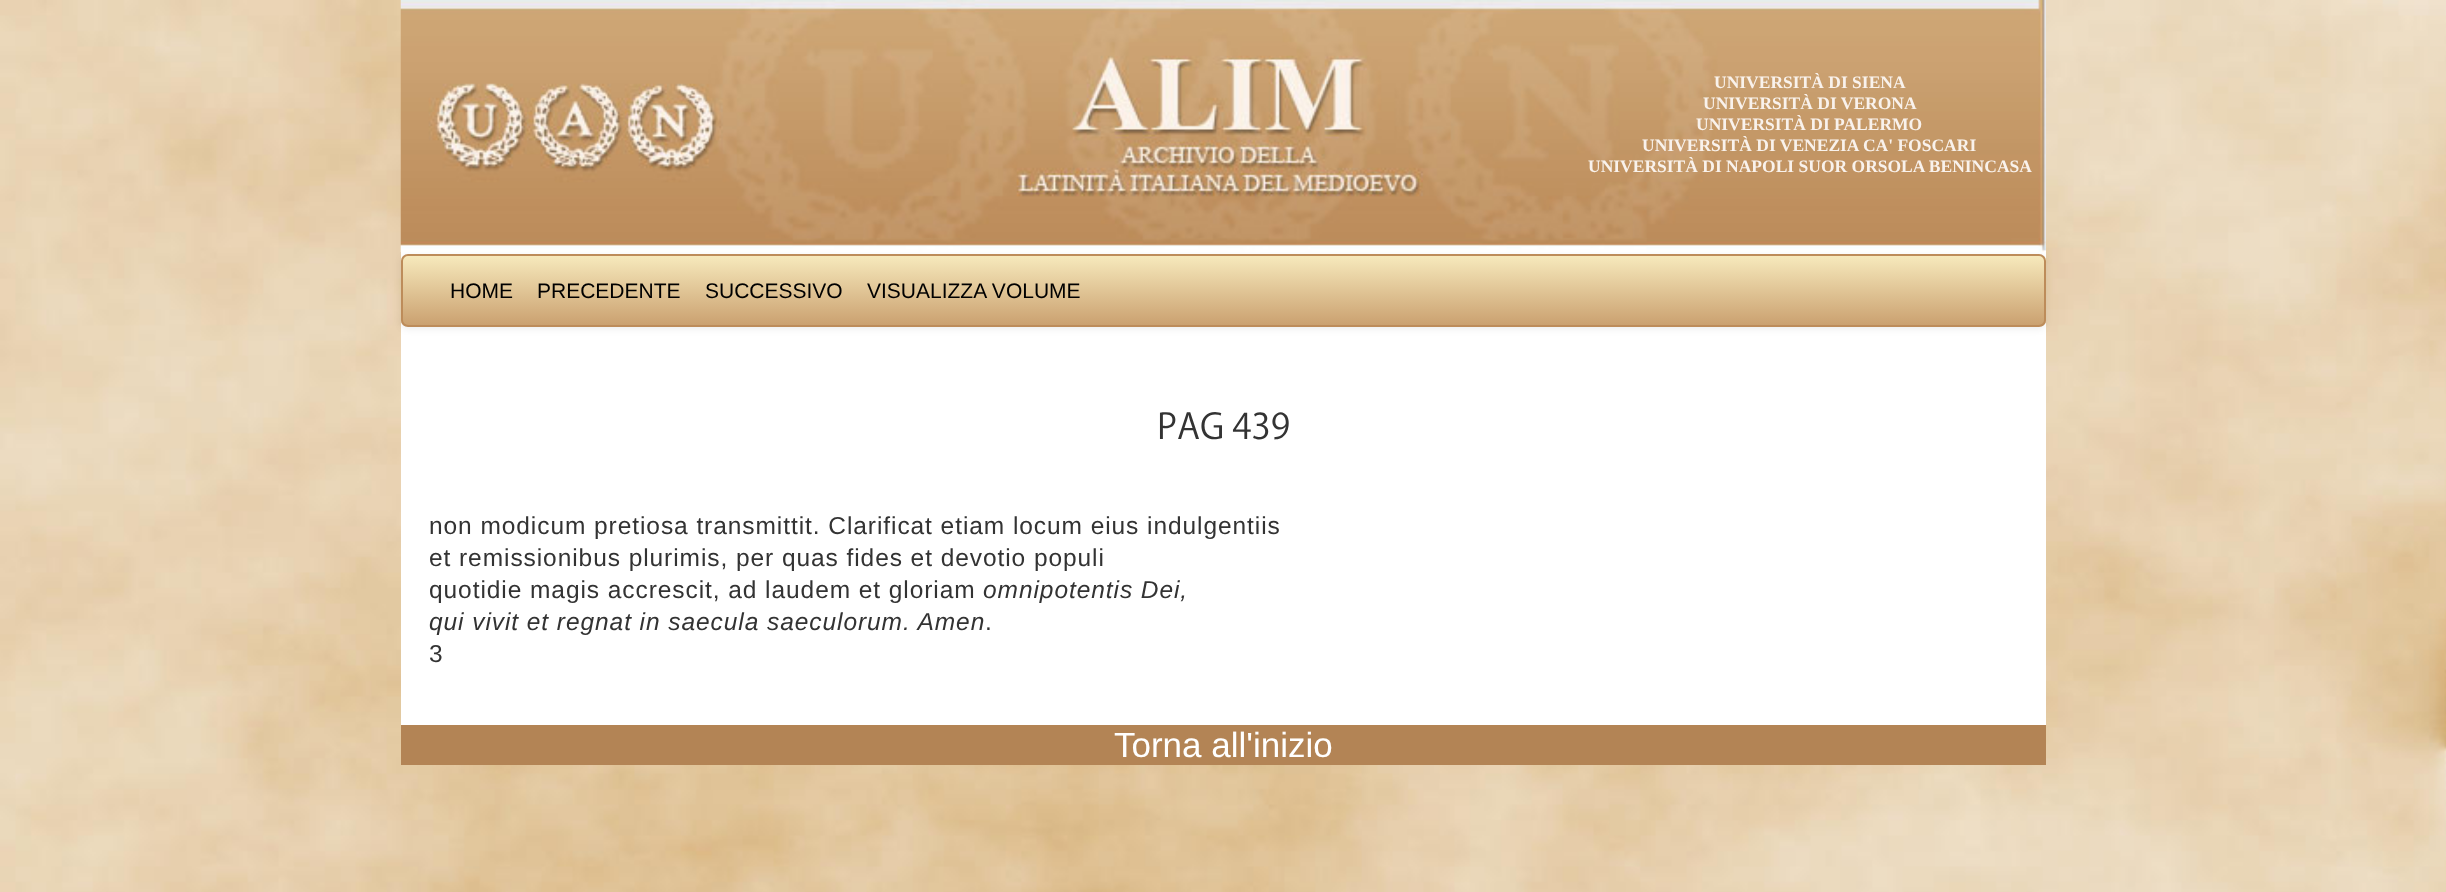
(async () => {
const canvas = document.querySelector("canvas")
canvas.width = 2446
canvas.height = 892
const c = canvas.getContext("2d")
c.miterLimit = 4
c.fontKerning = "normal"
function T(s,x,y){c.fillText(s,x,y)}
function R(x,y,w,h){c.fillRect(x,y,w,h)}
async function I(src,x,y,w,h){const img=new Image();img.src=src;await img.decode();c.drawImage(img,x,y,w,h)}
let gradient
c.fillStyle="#fff"
R(0,0,2446,892)
await I("1.png",0,0,2446,892)
R(401,0,1645,725)
c.fillStyle="#00000012"
c.filter="blur(3.5px)"
c.beginPath()
c.roundRect(401,256,1645,73,7)
c.fill()
c.filter="none"
await I("2.png",400,0,1646,252)
c.font="bold 17.5px Liberation Serif"
c.fillStyle="#f9f2ec"
T("UNIVERSITÀ DI SIENA",1714,88)
T("UNIVERSITÀ DI VERONA",1703,109)
T("UNIVERSITÀ DI PALERMO",1696,130)
T("UNIVERSITÀ DI VENEZIA CA' FOSCARI",1642,151)
T("UNIVERSITÀ DI NAPOLI SUOR ORSOLA BENINCASA",1588,172)
c.save()
c.beginPath()
c.roundRect(401,254,1645,73,7)
c.clip()
gradient = c.createLinearGradient(1223,255,1223,326)
gradient.addColorStop(0,"#f7eabd")
gradient.addColorStop(1,"#caa06f")
c.fillStyle = gradient
R(401,256,1645,70)
c.restore()
c.beginPath()
c.roundRect(402,255,1643,71,6)
c.strokeStyle="#bd8c5a"
c.lineWidth=2
c.stroke()
c.font="21px Liberation Sans"
c.fillStyle="#000"
T("HOME",450,298)
T("PRECEDENTE",537,298)
T("SUCCESSIVO",705,298)
T("VISUALIZZA VOLUME",867,298)
c.font="35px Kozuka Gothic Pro"
c.fillStyle="#333"
T("PAG 439",1157,439)
c.letterSpacing="0.93px"
c.font="24.5px Liberation Sans"
T("non modicum pretiosa transmittit. Clarificat etiam locum eius indulgentiis",429,534)
T("et remissionibus plurimis, per quas fides et devotio populi",429,566)
T("quotidie magis accrescit, ad laudem et gloriam",429,598)
c.font="italic 24.5px Liberation Sans"
T("omnipotentis Dei,",983,598)
T("qui vivit et regnat in saecula saeculorum. Amen",429,630)
c.font="24.5px Liberation Sans"
T(".",985,630)
T("3",429,662)
c.fillStyle="#b38455"
R(401,725,1645,40)
c.letterSpacing="0px"
c.font="35px Liberation Sans"
c.fillStyle="#fff"
T("Torna all'inizio",1114,757)
})()
